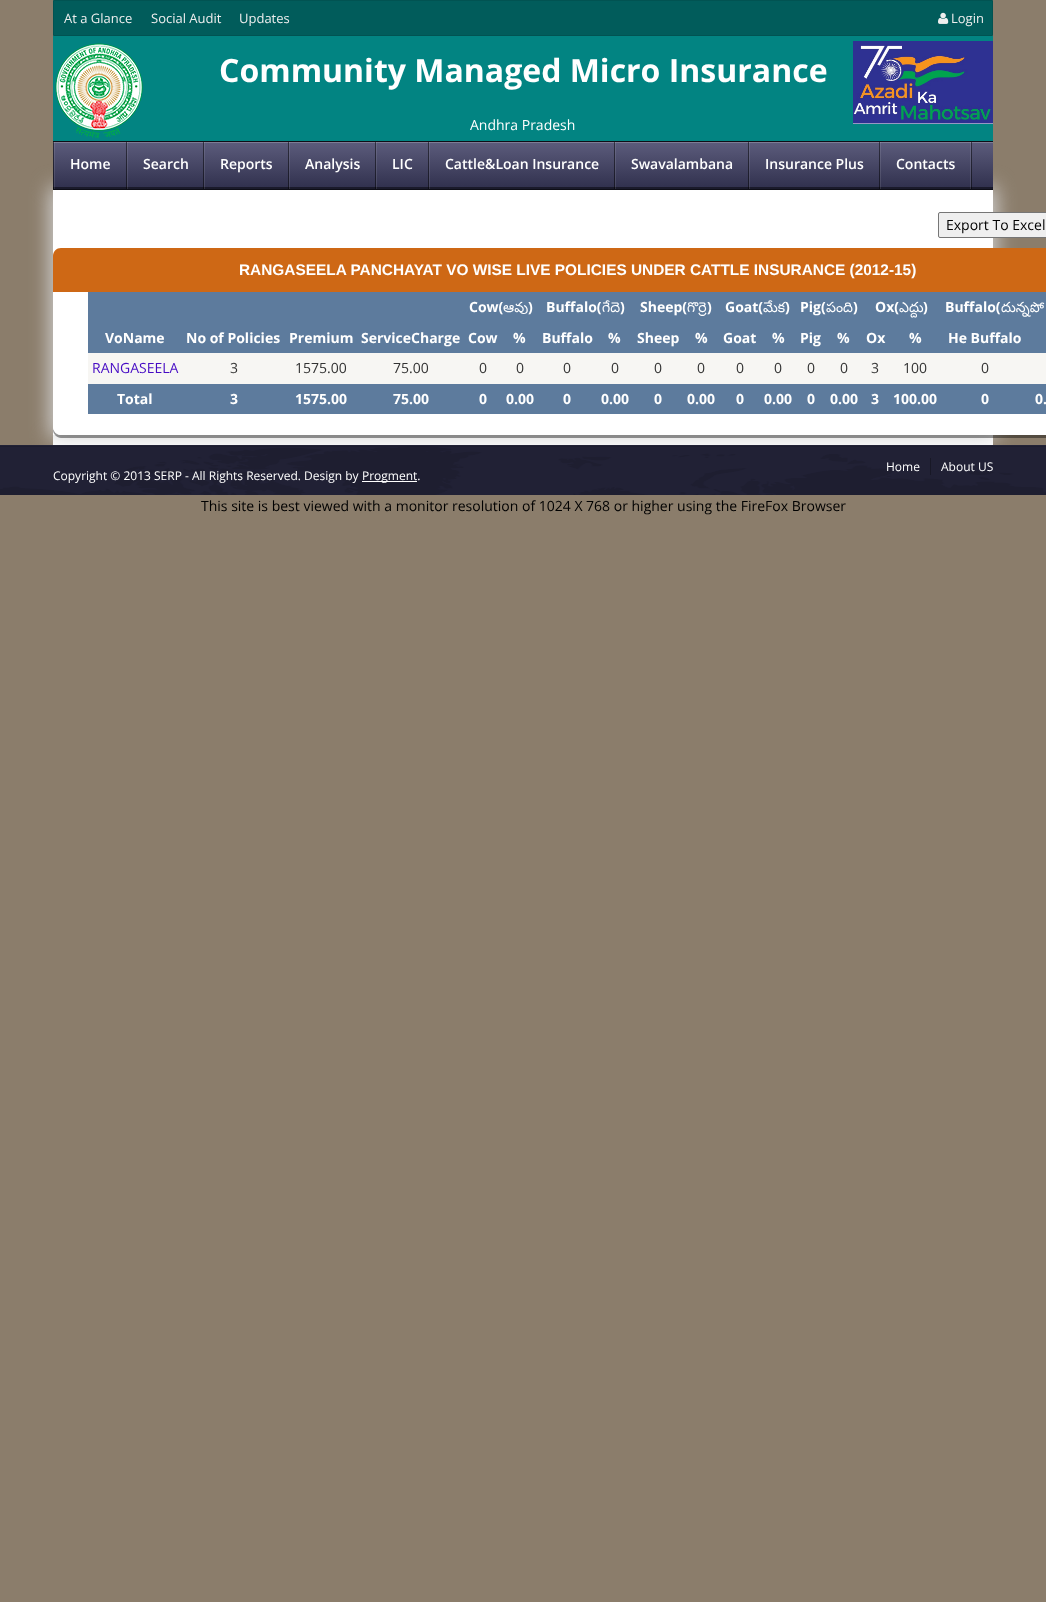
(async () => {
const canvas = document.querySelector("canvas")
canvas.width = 1046
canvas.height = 1602
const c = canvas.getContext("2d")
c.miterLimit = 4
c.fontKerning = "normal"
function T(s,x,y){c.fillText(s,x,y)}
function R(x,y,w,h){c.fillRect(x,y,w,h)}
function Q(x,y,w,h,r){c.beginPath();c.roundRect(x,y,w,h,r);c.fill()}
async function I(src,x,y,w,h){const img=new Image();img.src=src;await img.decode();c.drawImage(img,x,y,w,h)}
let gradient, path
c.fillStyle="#8b7d6b"
R(0,0,1046,1602)
c.fillStyle="#028482"
R(53,36,940,105)
c.fillStyle="#015c5b"
c.beginPath()
c.rect(53.5,.5,939,35)
c.fill()
c.strokeStyle="#015352"
c.stroke()
c.font="13px Open Sans"
c.fillStyle="#eee"
T("At a Glance",64,23)
T("Social Audit",151,23)
T("Updates",239,23)
await I("1.png",938,12,11,12)
T("Login",951,23)
await I("2.png",55,43,88,96)
c.font="bold 32px Open Sans"
c.fillStyle="#fff"
T("Community Managed Micro Insurance",219,82)
c.font="14px Open Sans"
T("Andhra Pradesh",470,130)
await I("3.png",853,41,140,83)
R(53,190,940,255)
c.save()
path = new Path2D("M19 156h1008v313h-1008zm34 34h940v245h-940z")
c.clip(path,"evenodd")
c.fillStyle="#d3d3d3"
c.filter="blur(10px)"
c.beginPath()
c.rect(50,187,946,251)
c.fill()
c.filter="none"
c.restore()
gradient = c.createLinearGradient(523,142,523,189)
gradient.addColorStop(0,"#5c5c7c")
gradient.addColorStop(1,"#30304d")
c.fillStyle = gradient
R(53,143,940,44)
c.fillStyle="#1a1a2b"
R(53,187,940,2)
c.fillStyle="#7d7d96"
R(53,142,940,1)
c.fillStyle="#0e0e17"
R(53,141,940,1)
R(53,189,940,1)
c.fillStyle="#00000080"
R(126,142,1,47)
R(53,142,1,47)
c.fillStyle="#ffffff1a"
R(54,142,1,47)
c.font="600 14px Open Sans"
c.fillStyle="#fff"
T("Home",70,169)
c.fillStyle="#00000080"
R(203,142,1,47)
c.fillStyle="#ffffff1a"
R(127,142,1,47)
c.fillStyle="#fff"
T("Search",143,169)
c.fillStyle="#00000080"
R(288,142,1,47)
c.fillStyle="#ffffff1a"
R(204,142,1,47)
c.fillStyle="#fff"
T("Reports",220,169)
c.fillStyle="#00000080"
R(375,142,1,47)
c.fillStyle="#ffffff1a"
R(289,142,1,47)
c.fillStyle="#fff"
T("Analysis",305,169)
c.fillStyle="#00000080"
R(428,142,1,47)
c.fillStyle="#ffffff1a"
R(376,142,1,47)
c.fillStyle="#fff"
T("LIC",392,169)
c.fillStyle="#00000080"
R(614,142,1,47)
c.fillStyle="#ffffff1a"
R(429,142,1,47)
c.fillStyle="#fff"
T("Cattle&Loan Insurance",445,169)
c.fillStyle="#00000080"
R(748,142,1,47)
c.fillStyle="#ffffff1a"
R(615,142,1,47)
c.fillStyle="#fff"
T("Swavalambana",631,169)
c.fillStyle="#00000080"
R(879,142,1,47)
c.fillStyle="#ffffff1a"
R(749,142,1,47)
c.fillStyle="#fff"
T("Insurance Plus",765,169)
c.fillStyle="#00000080"
R(971,142,1,47)
c.fillStyle="#ffffff1a"
R(970,142,1,47)
R(880,142,1,47)
c.fillStyle="#fff"
T("Contacts",896,169)
c.fillStyle="#efefef"
c.beginPath()
c.roundRect(938.5,212.5,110,25,1.5)
c.fill()
c.strokeStyle="#767676"
c.stroke()
c.font="14px Open Sans"
c.fillStyle="#000"
T("Export To Excel",946,230)
c.fillStyle="#00000066"
path = new Path2D("M53 427v3c0 4 4 8 8 8h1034c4 0 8-4 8-8v-3c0 4-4 8-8 8h-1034c-4 0-8-4-8-8z")
c.fill(path)
c.fillStyle="#fff"
Q(53,248,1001,187,8)
c.fillStyle="#ce6815"
path = new Path2D("M61 248h985c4.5 0 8 3.5 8 8v36h-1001v-36c0-4.5 3.5-8 8-8z")
c.fill(path)
c.font="bold 15.4px Liberation Sans"
c.fillStyle="#fff"
T("RANGASEELA PANCHAYAT VO WISE LIVE POLICIES UNDER CATTLE INSURANCE (2012-15)",239,275)
c.fillStyle="#5d7b9d"
R(88,292,958,61)
c.font="bold 14px Open Sans"
c.fillStyle="#fff"
T("Cow(",469,312)
c.font="14px Noto Sans Telugu"
T("ఆవు",503,312)
c.font="bold 14px Open Sans"
T(")",528,312)
T("Buffalo(",546,312)
c.font="14px Noto Sans Telugu"
T("గేదె",602,312)
c.font="bold 14px Open Sans"
T(")",620,312)
T("Sheep(",640,312)
c.font="14px Noto Sans Telugu"
T("గొర్రె",687,312)
c.font="bold 14px Open Sans"
T(")",707,312)
T("Goat(",725,312)
c.font="14px Noto Sans Telugu"
T("మేక",763,312)
c.font="bold 14px Open Sans"
T(")",785,312)
T("Pig(",800,312)
c.font="14px Noto Sans Telugu"
T("పంది",826,312)
c.font="bold 14px Open Sans"
T(")",853,312)
T("Ox(",875,312)
c.font="14px Noto Sans Telugu"
T("ఎద్దు",899,312)
c.font="bold 14px Open Sans"
T(")",923,312)
T("Buffalo(",945,312)
c.font="14px Noto Sans Telugu"
T("దున్నపో",1001,312)
c.font="bold 14px Open Sans"
T("VoName",105,343)
T("No of Policies",186,343)
T("Premium",289,343)
T("ServiceCharge",361,343)
T("Cow",468,343)
T("%",513,343)
T("Buffalo",542,343)
T("%",608,343)
T("Sheep",637,343)
T("%",695,343)
T("Goat",723,343)
T("%",772,343)
T("Pig",800,343)
T("%",837,343)
T("Ox",866,343)
T("%",909,343)
T("He Buffalo",948,343)
c.fillStyle="#f7f6f3"
R(88,353,958,31)
c.font="14px Open Sans"
c.fillStyle="#460bc4"
T("RANGASEELA",92,373)
c.fillStyle="#333"
T("3",230,373)
T("1575.00",295,373)
T("75.00",393,373)
T("0",479,373)
T("0",516,373)
T("0",563,373)
T("0",611,373)
T("0",654,373)
T("0",697,373)
T("0",736,373)
T("0",774,373)
T("0",807,373)
T("0",840,373)
T("3",871,373)
T("100",903,373)
T("0",981,373)
c.fillStyle="#5d7b9d"
R(88,384,958,30)
c.font="bold 14px Open Sans"
c.fillStyle="#fff"
T("Total",117,404)
T("3",230,404)
T("1575.00",295,404)
T("75.00",393,404)
T("0",479,404)
T("0.00",506,404)
T("0",563,404)
T("0.00",601,404)
T("0",654,404)
T("0.00",687,404)
T("0",736,404)
T("0.00",764,404)
T("0",807,404)
T("0.00",830,404)
T("3",871,404)
T("100.00",893,404)
T("0",981,404)
T("0.",1035,404)
c.fillStyle="#30304d"
R(0,446,1046,49)
await I("4.png",0,446,1046,49)
c.fillStyle="#222236"
R(0,445,1046,1)
c.fillStyle="#0000004d"
R(0,446,1046,49)
c.fillStyle="#0000001a"
R(0,446,1046,1)
c.font="12px Open Sans"
c.fillStyle="#fff"
T("Home",886,471)
T("About US",941,471)
c.fillStyle="#181826"
R(930,458,1,17)
c.fillStyle="#fff"
T("Copyright © 2013 SERP - All Rights Reserved. Design by",53,480)
R(362,481,55,1)
T("Progment.",362,480)
c.font="14px Open Sans"
c.fillStyle="#000"
T("This site is best viewed with a monitor resolution of 1024 X 768 or higher using the FireFox Browser",201,511)
})()
